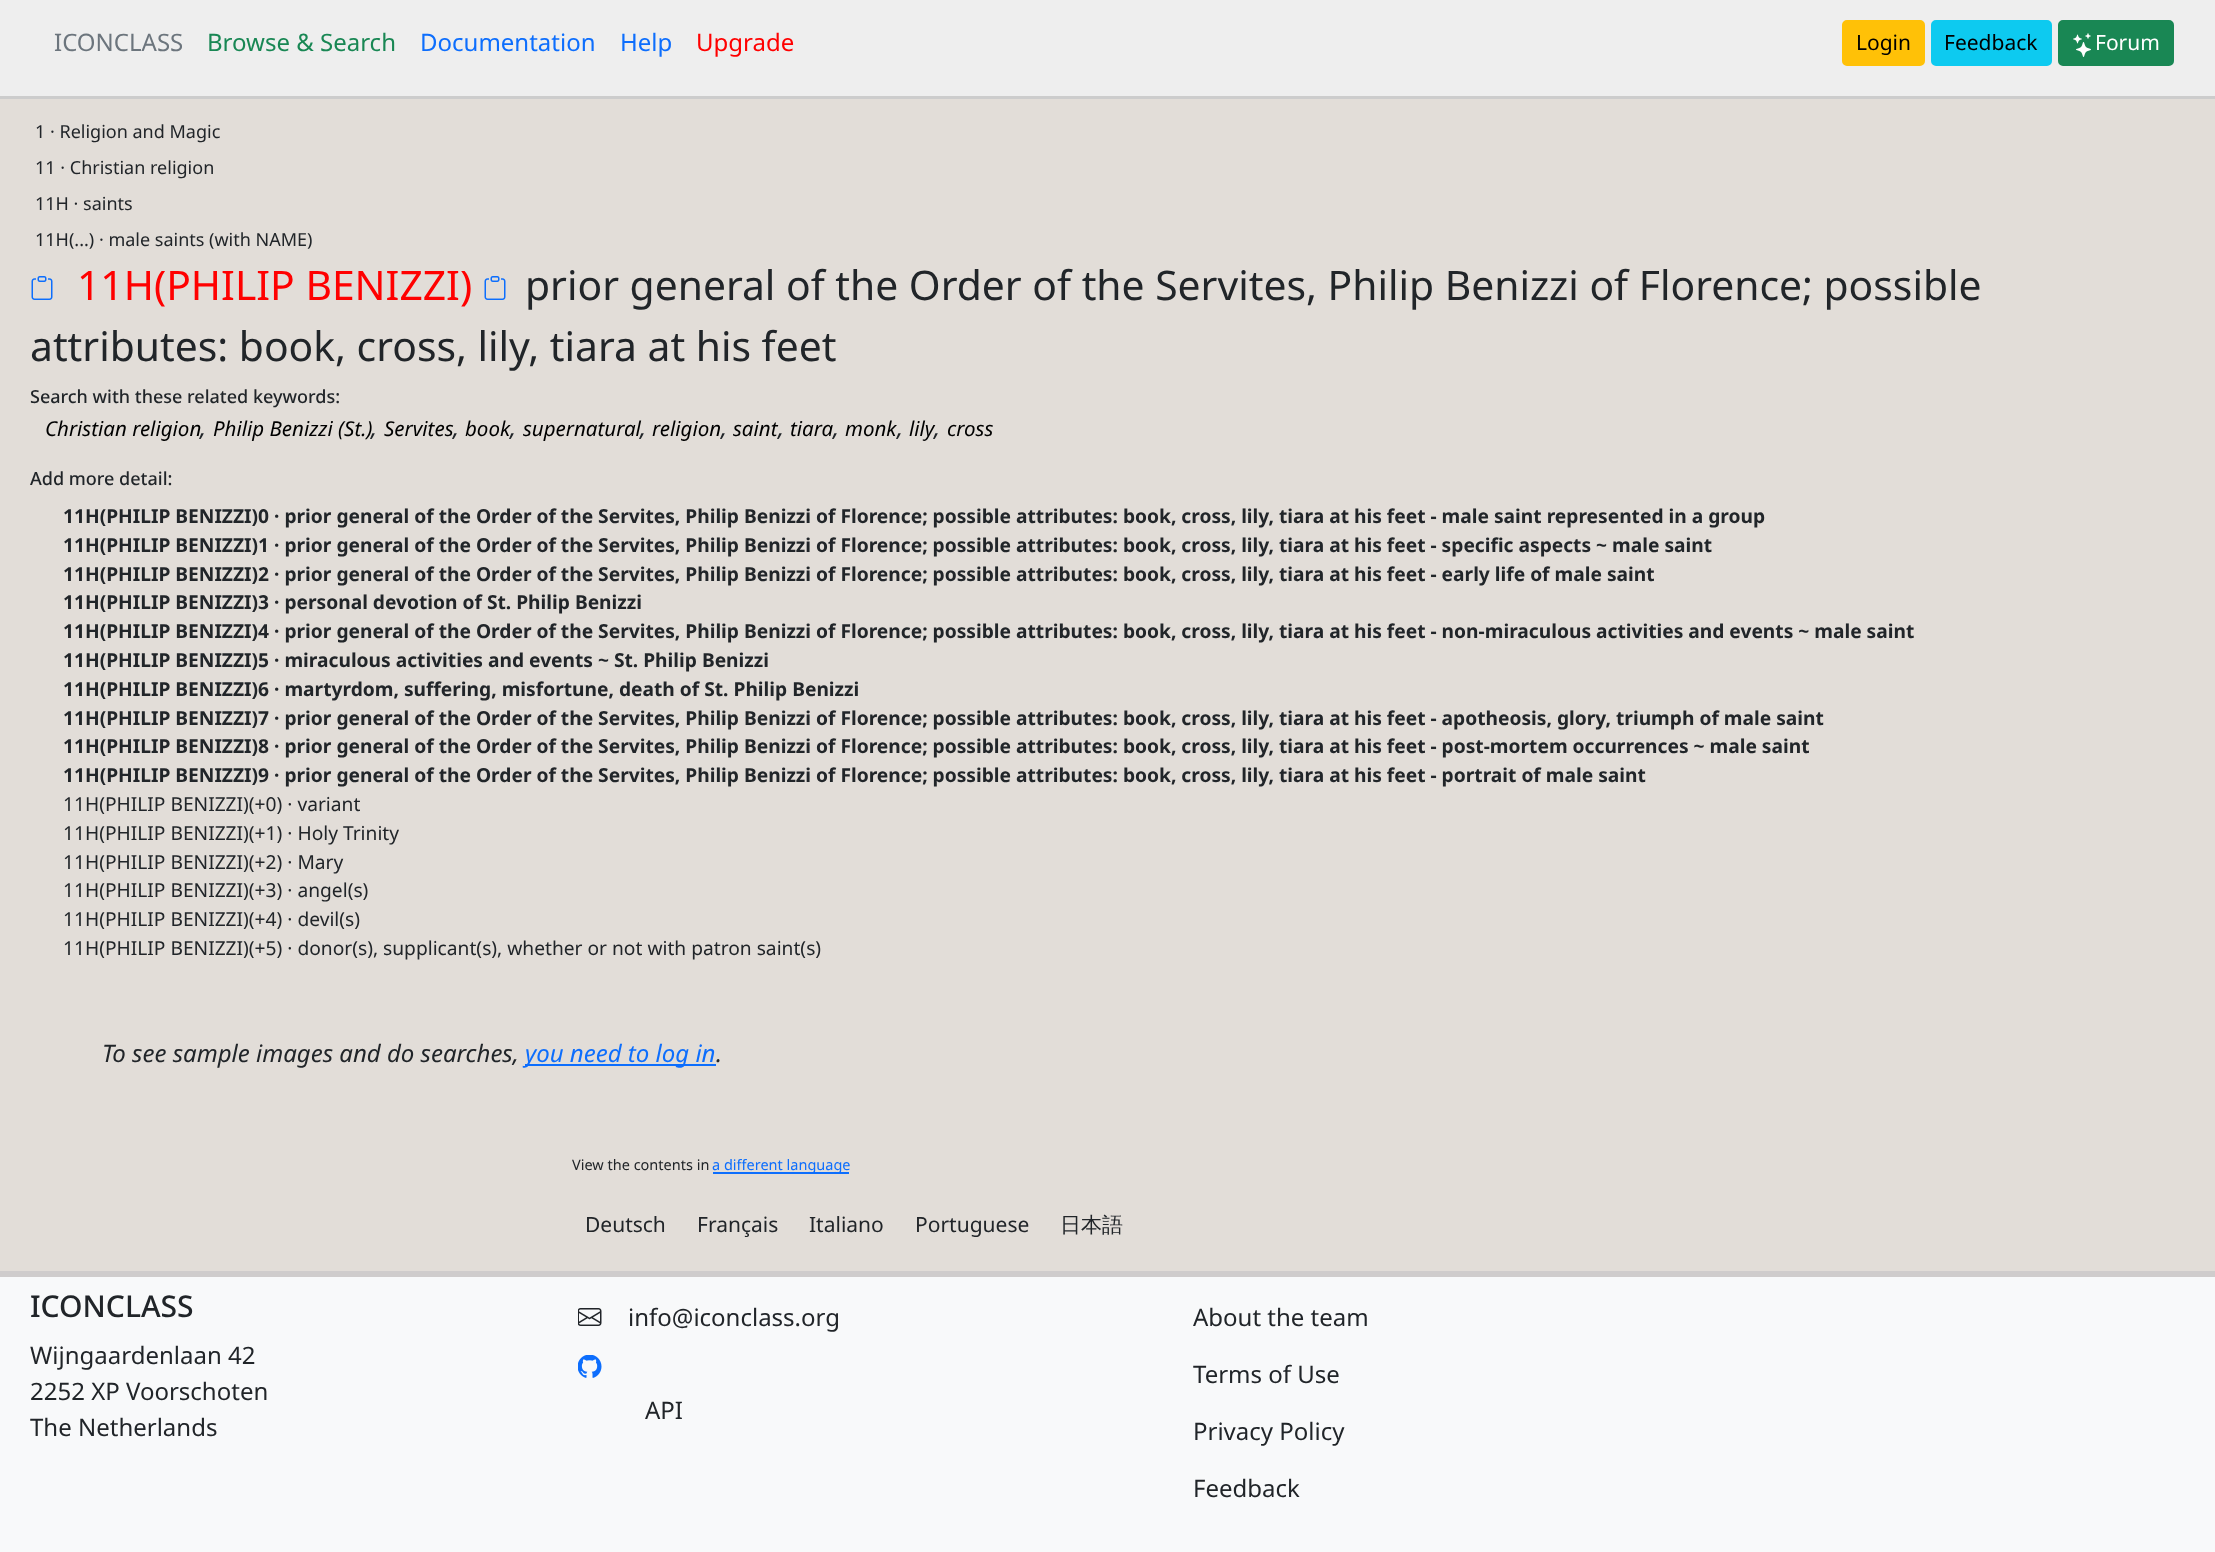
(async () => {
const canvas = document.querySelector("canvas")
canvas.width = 2215
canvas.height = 1552
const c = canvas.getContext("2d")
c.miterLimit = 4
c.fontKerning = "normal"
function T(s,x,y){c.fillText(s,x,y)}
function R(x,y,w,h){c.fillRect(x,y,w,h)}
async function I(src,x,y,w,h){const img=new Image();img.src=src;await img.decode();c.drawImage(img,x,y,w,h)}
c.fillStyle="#e2ddd8"
R(0,0,2215,1552)
c.fillStyle="#eee"
R(0,0,2215,96)
c.fillStyle="#ccc"
R(0,96,2215,3)
c.font="24px Noto Sans"
c.fillStyle="#6c757d"
T("ICONCLASS",54,51)
c.fillStyle="#198754"
T("Browse & Search",207,51)
c.fillStyle="#0d6efd"
T("Documentation",420,51)
T("Help",620,51)
c.fillStyle="#f00"
T("Upgrade",696,51)
c.fillStyle="#ffc107"
c.beginPath()
c.roundRect(1843,21,81,44,4)
c.fill()
c.strokeStyle="#ffc107"
c.lineWidth=2
c.stroke()
c.font="21px Noto Sans"
c.fillStyle="#000"
T("Login",1856,50)
c.fillStyle="#0dcaf0"
c.beginPath()
c.roundRect(1932,21,119,44,4)
c.fill()
c.strokeStyle="#0dcaf0"
c.stroke()
c.fillStyle="#000"
T("Feedback",1944,50)
c.fillStyle="#198754"
c.beginPath()
c.roundRect(2059,21,114,44,4)
c.fill()
c.strokeStyle="#198754"
c.stroke()
await I("1.png",2073,33,18,24)
c.fillStyle="#fff"
T("Forum",2095,50)
c.font="18px Noto Sans"
c.fillStyle="#212529"
T("1 · Religion and Magic",35,138)
T("11 · Christian religion",35,174)
T("11H · saints",35,210)
T("11H(...) · male saints (with NAME)",35,246)
await I("2.png",31,276,22,24)
c.font="40.8px Noto Sans"
c.fillStyle="#f00"
T("11H(PHILIP BENIZZI)",77,300)
await I("2.png",484,276,22,24)
c.fillStyle="#212529"
T("prior general of the Order of the Servites, Philip Benizzi of Florence; possible",525,300)
T("attributes: book, cross, lily, tiara at his feet",30,361)
c.font="500 18px Noto Sans"
T("Search with these related keywords:",30,403)
c.font="italic 20.5px Noto Sans"
c.fillStyle="#000"
T("Christian religion",45,436)
c.font="italic 24px Noto Sans"
c.fillStyle="#212529"
T(",",200,436)
c.font="italic 20.5px Noto Sans"
c.fillStyle="#000"
T("Philip Benizzi (St.)",213,436)
c.font="italic 24px Noto Sans"
c.fillStyle="#212529"
T(",",371,436)
c.font="italic 20.5px Noto Sans"
c.fillStyle="#000"
T("Servites",384,436)
c.font="italic 24px Noto Sans"
c.fillStyle="#212529"
T(",",453,436)
c.font="italic 20.5px Noto Sans"
c.fillStyle="#000"
T("book",465,436)
c.font="italic 24px Noto Sans"
c.fillStyle="#212529"
T(",",510,436)
c.font="italic 20.5px Noto Sans"
c.fillStyle="#000"
T("supernatural",523,436)
T("religion",652,436)
T("saint",733,436)
T("tiara",790,436)
T("monk",845,436)
T("lily",909,436)
T("cross",947,436)
c.font="italic 24px Noto Sans"
c.fillStyle="#212529"
T(",",640,436)
T(",",721,436)
T(",",778,436)
T(",",833,436)
T(",",897,436)
T(",",934,436)
c.font="500 18px Noto Sans"
T("Add more detail:",30,485)
c.font="bold 19.2px Noto Sans"
T("11H(PHILIP BENIZZI)0 · prior general of the Order of the Servites, Philip Benizzi of Florence; possible attributes: book, cross, lily, tiara at his feet - male saint represented in a group",63,523)
T("11H(PHILIP BENIZZI)1 · prior general of the Order of the Servites, Philip Benizzi of Florence; possible attributes: book, cross, lily, tiara at his feet - specific aspects ~ male saint",63,552)
T("11H(PHILIP BENIZZI)2 · prior general of the Order of the Servites, Philip Benizzi of Florence; possible attributes: book, cross, lily, tiara at his feet - early life of male saint",63,581)
T("11H(PHILIP BENIZZI)3 · personal devotion of St. Philip Benizzi",63,609)
T("11H(PHILIP BENIZZI)4 · prior general of the Order of the Servites, Philip Benizzi of Florence; possible attributes: book, cross, lily, tiara at his feet - non-miraculous activities and events ~ male saint",63,638)
T("11H(PHILIP BENIZZI)5 · miraculous activities and events ~ St. Philip Benizzi",63,667)
T("11H(PHILIP BENIZZI)6 · martyrdom, suffering, misfortune, death of St. Philip Benizzi",63,696)
T("11H(PHILIP BENIZZI)7 · prior general of the Order of the Servites, Philip Benizzi of Florence; possible attributes: book, cross, lily, tiara at his feet - apotheosis, glory, triumph of male saint",63,725)
T("11H(PHILIP BENIZZI)8 · prior general of the Order of the Servites, Philip Benizzi of Florence; possible attributes: book, cross, lily, tiara at his feet - post-mortem occurrences ~ male saint",63,753)
T("11H(PHILIP BENIZZI)9 · prior general of the Order of the Servites, Philip Benizzi of Florence; possible attributes: book, cross, lily, tiara at his feet - portrait of male saint",63,782)
c.font="19.2px Noto Sans"
T("11H(PHILIP BENIZZI)(+0) · variant",63,811)
T("11H(PHILIP BENIZZI)(+1) · Holy Trinity",63,840)
T("11H(PHILIP BENIZZI)(+2) · Mary",63,869)
T("11H(PHILIP BENIZZI)(+3) · angel(s)",63,897)
T("11H(PHILIP BENIZZI)(+4) · devil(s)",63,926)
T("11H(PHILIP BENIZZI)(+5) · donor(s), supplicant(s), whether or not with patron saint(s)",63,955)
c.font="italic 24px Noto Sans"
T("To see sample images and do searches,",102,1062)
c.fillStyle="#0d6efd"
R(525,1064,191,2)
T("you need to log in",525,1062)
c.fillStyle="#212529"
T(".",716,1062)
c.font="14.5px Noto Sans"
T("View the contents in",572,1170)
c.fillStyle="#0d6efd"
R(713,1172,136,2)
T("a different language",712,1170)
c.font="21px Noto Sans"
c.fillStyle="#212529"
T("Deutsch",585,1232)
T("Français",697,1232)
T("Italiano",809,1232)
T("Portuguese",915,1232)
c.font="500 21px WenQuanYi Zen Hei"
T("日本語",1060,1232)
c.fillStyle="#f8f9fa"
R(0,1277,2215,275)
c.fillStyle="#cfcccc"
R(0,1271,2215,6)
c.font="500 30px Noto Sans"
c.fillStyle="#212529"
T("ICONCLASS",30,1317)
c.font="24px Noto Sans"
T("Wijngaardenlaan 42",30,1364)
T("2252 XP Voorschoten",30,1400)
T("The Netherlands",30,1436)
await I("3.png",578,1308,24,18)
T("info@iconclass.org",628,1326)
await I("4.png",578,1355,24,23)
T("API",645,1419)
T("About the team",1193,1326)
T("Terms of Use",1193,1383)
T("Privacy Policy",1193,1440)
T("Feedback",1193,1497)
})()
